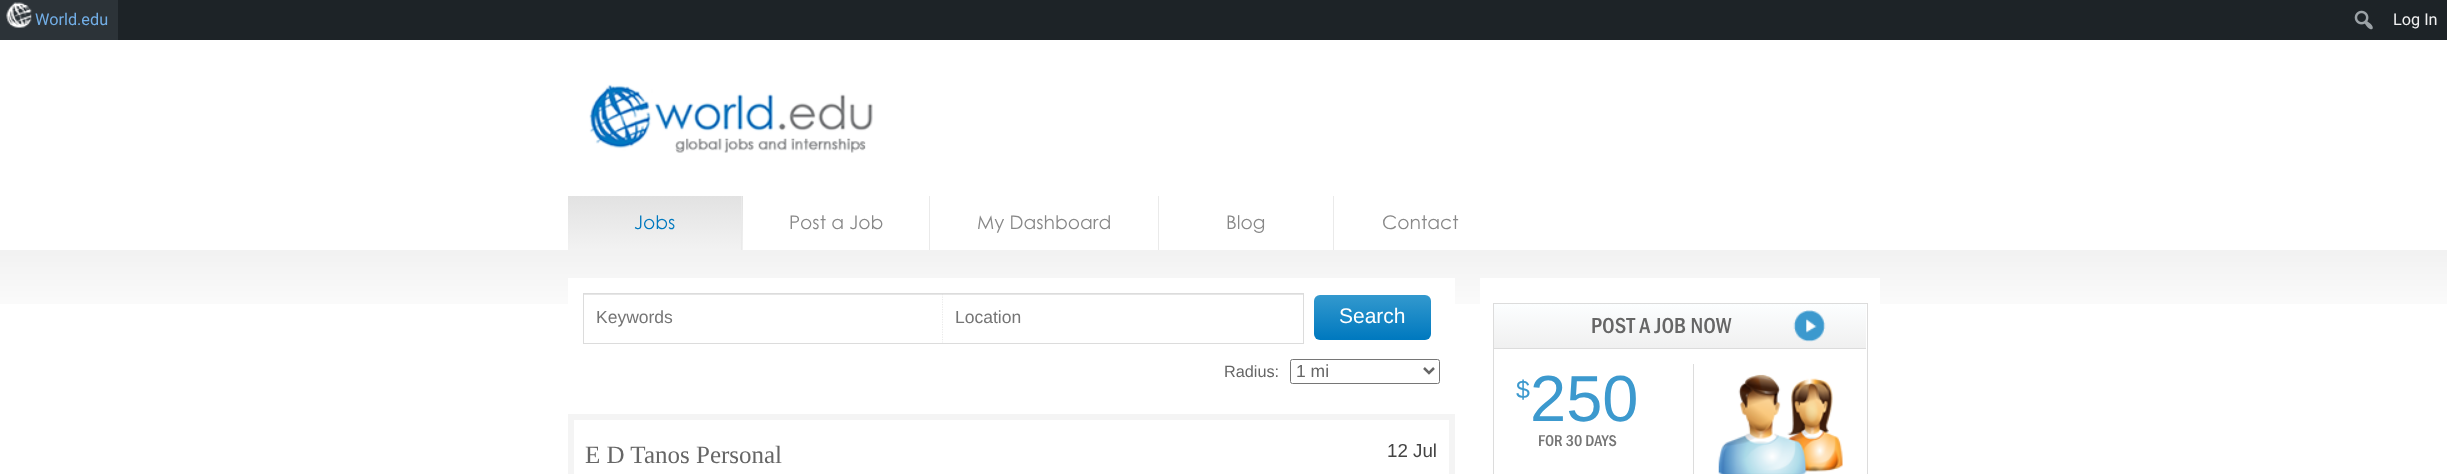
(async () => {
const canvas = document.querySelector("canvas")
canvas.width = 2447
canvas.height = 474
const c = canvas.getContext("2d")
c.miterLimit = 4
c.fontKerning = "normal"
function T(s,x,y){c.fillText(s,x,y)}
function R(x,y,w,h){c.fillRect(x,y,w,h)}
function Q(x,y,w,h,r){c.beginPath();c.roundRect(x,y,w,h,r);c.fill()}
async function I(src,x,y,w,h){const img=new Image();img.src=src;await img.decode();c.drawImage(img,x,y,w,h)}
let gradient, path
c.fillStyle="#fff"
R(0,0,2447,474)
c.fillStyle="#1d2327"
R(118,0,2329,40)
await I("1.png",2354,10,19,20)
c.fillStyle="#2c3338"
R(0,0,118,40)
await I("2.png",6,2,26,26)
c.font="16.25px Roboto"
c.fillStyle="#72aee6"
T("World.edu",35,25)
c.fillStyle="#f0f0f1"
T("Log In",2393,25)
await I("3.png",589,84,284,69)
gradient = c.createLinearGradient(568,196,568,250)
gradient.addColorStop(0,"#e2e2e2")
gradient.addColorStop(1,"#f2f2f2")
c.fillStyle = gradient
R(568,196,175,54)
c.fillStyle="#eaeaea"
R(741,196,1,54)
c.font="18.75px Century Gothic"
c.fillStyle="#0079bf"
T("Jobs",634,229)
c.fillStyle="#eaeaea"
R(929,196,1,54)
c.fillStyle="#888"
T("Post a Job",789,229)
c.fillStyle="#eaeaea"
R(1158,196,1,54)
c.fillStyle="#888"
T("My Dashboard",977,229)
c.fillStyle="#eaeaea"
R(1333,196,1,54)
c.fillStyle="#888"
T("Blog",1226,229)
T("Contact",1382,229)
await I("4.png",0,250,2447,54)
c.fillStyle="#fff"
R(568,278,887,26)
c.strokeStyle="#dcdcdc"
c.strokeRect(583.5,293.5,720,50)
c.fillStyle="#e6e6e6"
R(584,294,359,1)
path = new Path2D("M943 294v48.5")
c.lineWidth=1.2
c.setLineDash([1.25,1.25])
c.stroke(path)
c.font="17.5px Liberation Sans"
c.fillStyle="#757575"
T("Keywords",596,323)
c.fillStyle="#fff"
R(943,295,1,48)
c.fillStyle="#e6e6e6"
R(943,294,360,1)
c.fillStyle="#757575"
T("Location",955,323)
gradient = c.createLinearGradient(1373,295,1373,340)
gradient.addColorStop(0,"#3399ce")
gradient.addColorStop(.98,"#0079bf")
c.fillStyle = gradient
Q(1314,295,117,45,6)
c.font="21px Liberation Sans"
c.fillStyle="#fff"
T("Search",1339,323)
c.font="16.25px Liberation Sans"
c.fillStyle="#666"
T("Radius:",1224,377)
c.beginPath()
c.roundRect(1290.5,359.5,149,24,2)
c.strokeStyle="#767676"
c.lineWidth=1
c.setLineDash([])
c.stroke()
path = new Path2D("M1424 368l5 5l5-5")
c.strokeStyle="#666"
c.lineWidth=2.5
c.stroke(path)
c.font="17.5px Liberation Sans"
T("1 mi",1296,377)
c.fillStyle="#f4f4f4"
R(568,414,887,60)
c.fillStyle="#fff"
R(574,420,875,54)
c.font="25px Liberation Serif"
c.fillStyle="#666"
T("E D Tanos Personal",585,463)
c.font="18.75px Liberation Sans"
c.fillStyle="#444"
T("12 Jul",1387,457)
c.fillStyle="#fff"
R(1480,278,400,26)
c.strokeStyle="#dcdcdc"
c.lineWidth=1
c.strokeRect(1493.5,303.5,374,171)
gradient = c.createLinearGradient(1680,304,1680,348)
gradient.addColorStop(0,"#fcfeff")
gradient.addColorStop(1,"#f0f0f0")
c.fillStyle = gradient
R(1494,304,372,44)
c.fillStyle="#dcdcdc"
R(1494,348,372,1)
await I("5.png",1793,310,33,32)
c.font="500 22.5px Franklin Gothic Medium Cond"
c.fillStyle="#666"
T("POST A JOB NOW",1591,333)
c.font="25px Liberation Sans"
c.fillStyle="#3c99ce"
T("$",1516,398)
c.font="65px Liberation Sans"
T("250",1530,421)
c.font="500 16.25px Franklin Gothic Medium Cond"
c.fillStyle="#757575"
T("FOR 30 DAYS",1538,446)
c.fillStyle="#dcdcdc"
R(1693,364,1,110)
await I("6.png",1718,374,125,100)
})()
